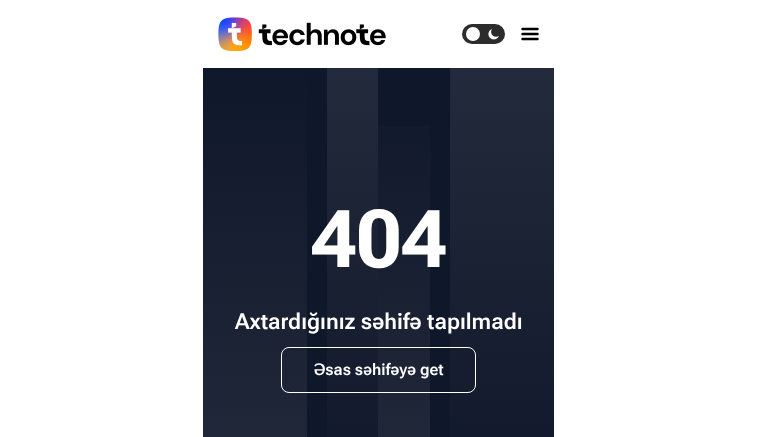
(async () => {
const canvas = document.querySelector("canvas")
canvas.width = 757
canvas.height = 437
const c = canvas.getContext("2d")
c.miterLimit = 4
c.fontKerning = "normal"
function T(s,x,y){c.fillText(s,x,y)}
function R(x,y,w,h){c.fillRect(x,y,w,h)}
function Q(x,y,w,h,r){c.beginPath();c.roundRect(x,y,w,h,r);c.fill()}
async function I(src,x,y,w,h){const img=new Image();img.src=src;await img.decode();c.drawImage(img,x,y,w,h)}
let gradient
c.fillStyle="#fff"
R(0,0,757,437)
await I("1.png",218,17,34,34)
await I("2.png",258,22,128,24)
c.fillStyle="#2c2c2c"
Q(462,24,43,20,10)
await I("3.png",478,29,2,10)
c.fillStyle="#fff"
c.beginPath()
c.arc(473,34,7,0,7)
c.fill()
await I("4.png",488,29,11,11)
await I("5.png",521,27,18,14)
c.fillStyle="#0f172a"
R(307,68,143,369)
gradient = c.createLinearGradient(255,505,255,68)
gradient.addColorStop(0,"#222a3b")
gradient.addColorStop(1,"#0f172a")
c.fillStyle = gradient
R(203,68,104,369)
gradient = c.createLinearGradient(353,68,353,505)
gradient.addColorStop(0,"#222a3b")
gradient.addColorStop(1,"#0f172a")
c.fillStyle = gradient
R(327,68,51,369)
gradient = c.createLinearGradient(404,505,404,68)
gradient.addColorStop(0,"#222a3b")
gradient.addColorStop(1,"#0f172a")
c.fillStyle = gradient
R(378,125,52,312)
gradient = c.createLinearGradient(502,68,502,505)
gradient.addColorStop(0,"#222a3b")
gradient.addColorStop(1,"#0f172a")
c.fillStyle = gradient
R(450,68,104,369)
c.font="bold 80px Roboto Flex"
c.fillStyle="#fff"
T("404",311,267)
c.font="600 22px Roboto Flex"
T("Axtardığınız səhifə tapılmadı",235,329)
c.beginPath()
c.roundRect(281.5,347.5,194,45,7.5)
c.strokeStyle="#fff"
c.stroke()
c.font="600 16px Roboto Flex"
T("Əsas səhifəyə get",314,375)
})()
